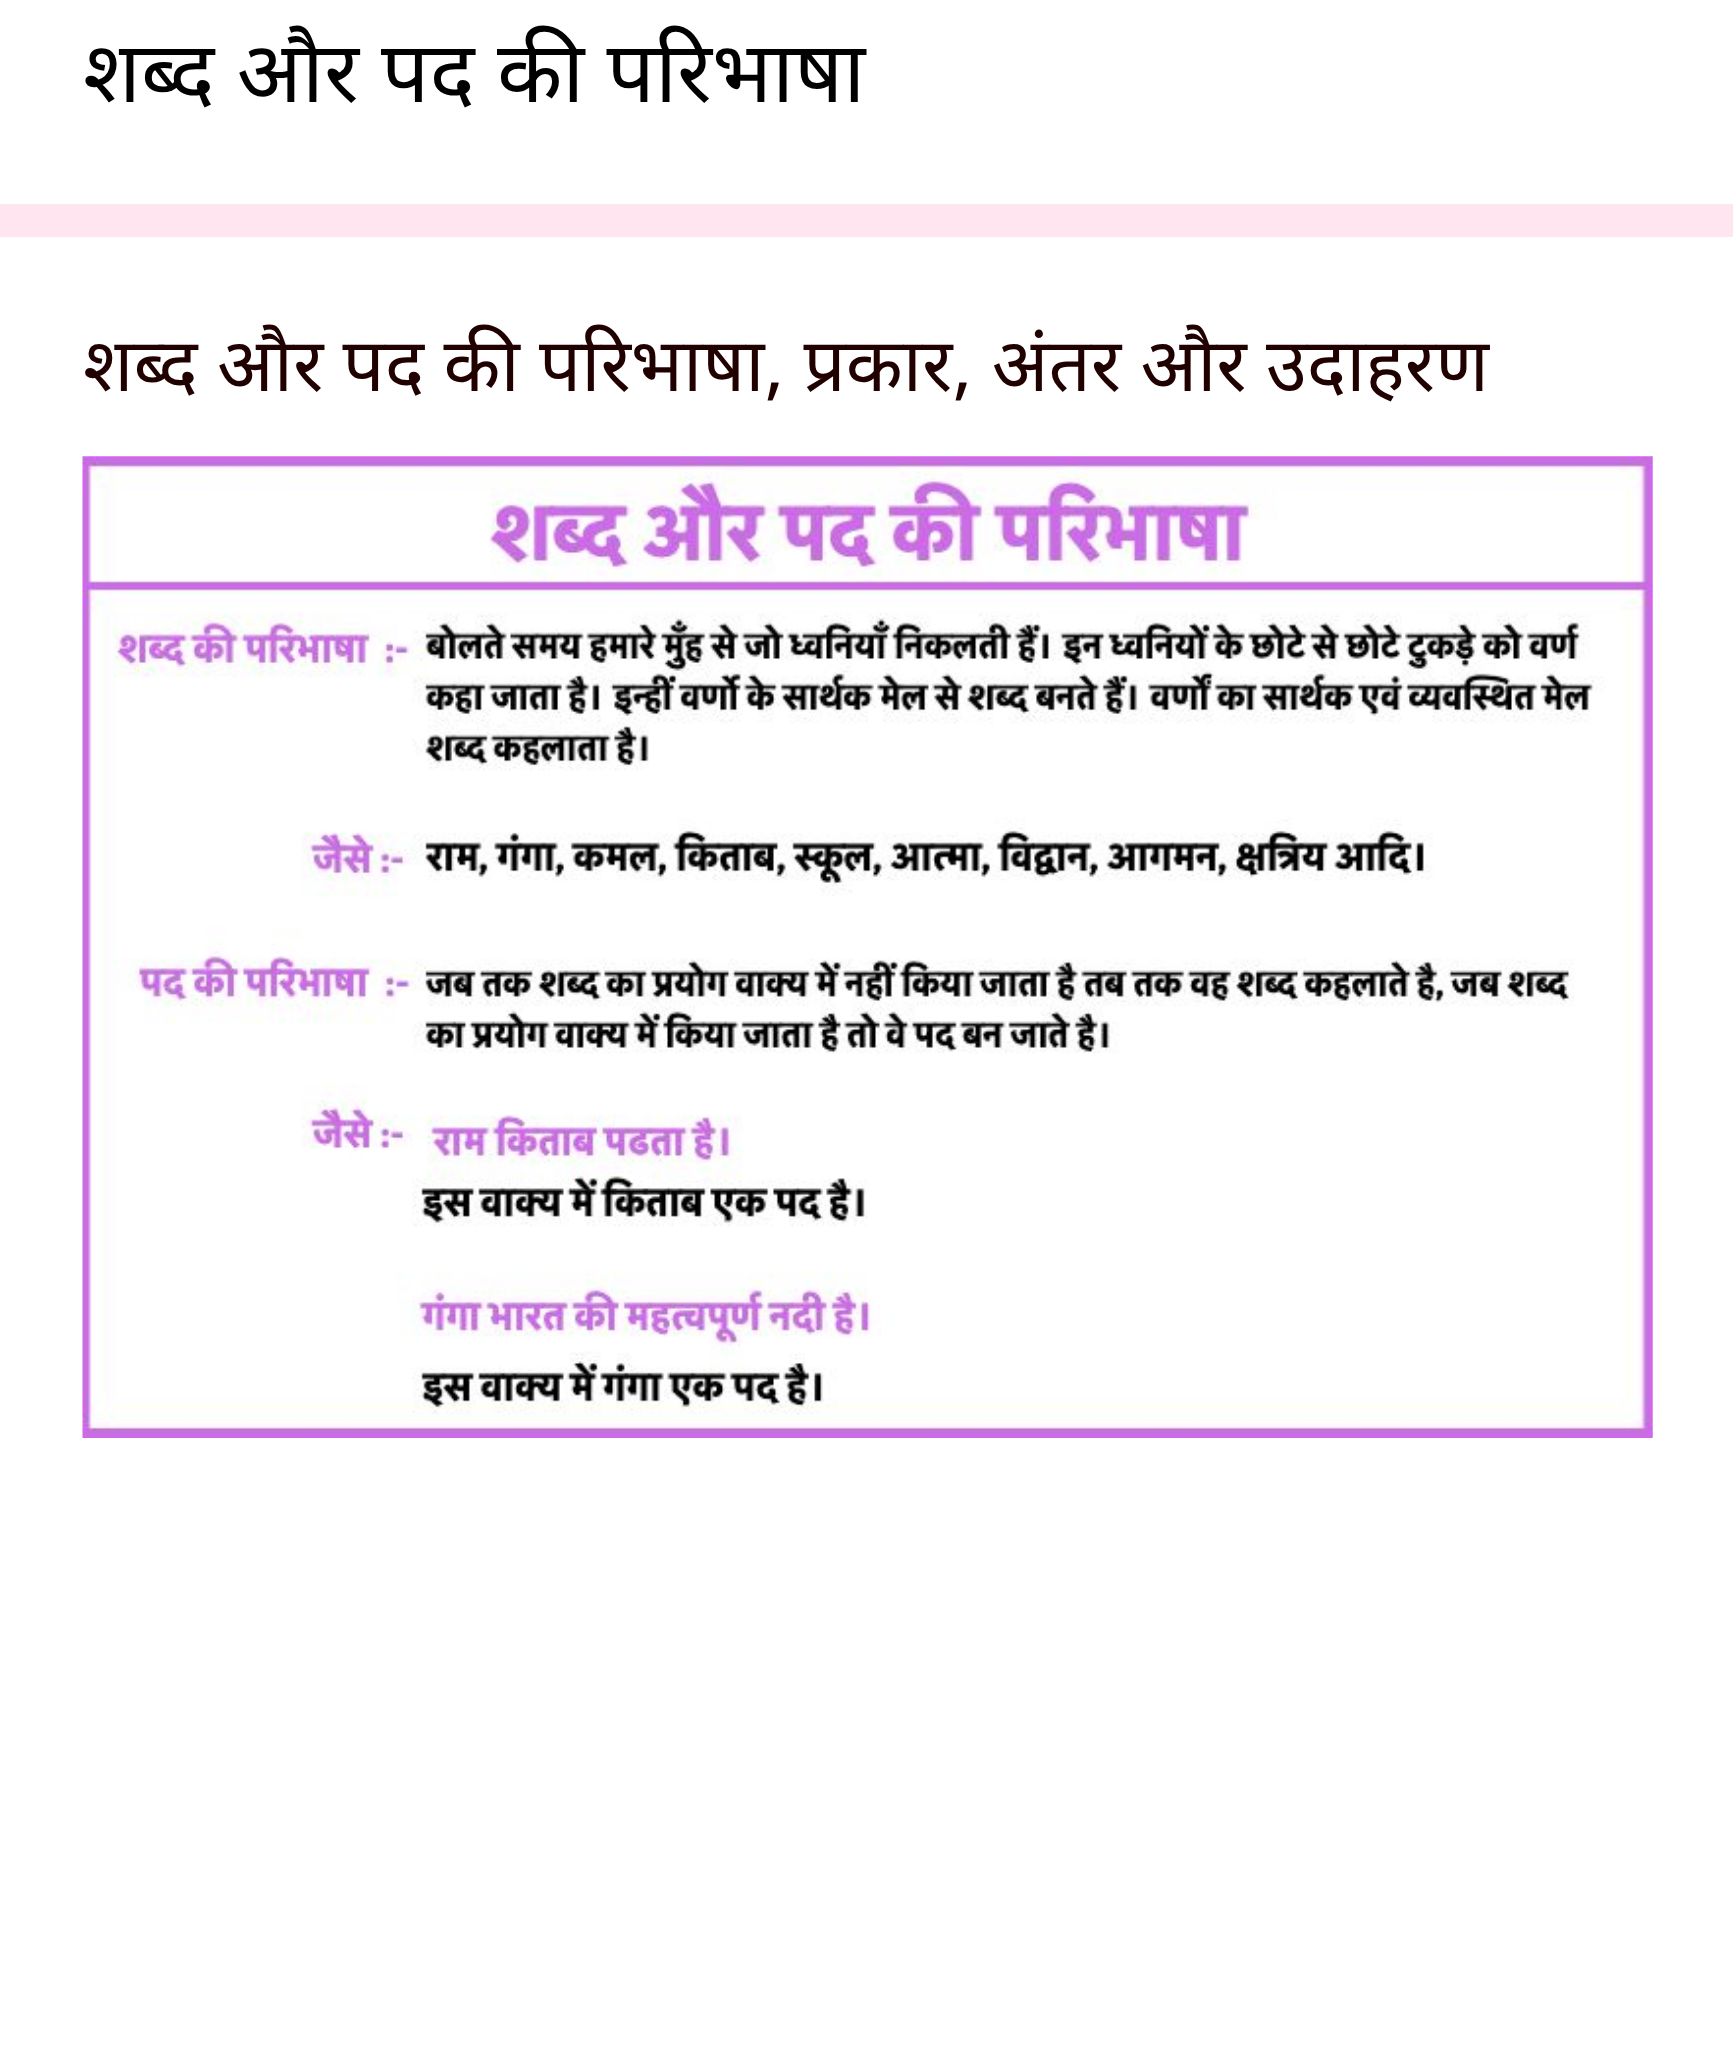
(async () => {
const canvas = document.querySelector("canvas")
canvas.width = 1733
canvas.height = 2052
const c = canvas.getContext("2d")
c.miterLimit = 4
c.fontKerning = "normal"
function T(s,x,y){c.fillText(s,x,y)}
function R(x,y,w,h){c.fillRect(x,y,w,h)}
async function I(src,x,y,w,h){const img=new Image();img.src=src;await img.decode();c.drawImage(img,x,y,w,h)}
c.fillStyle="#ffe5f0"
R(0,0,1733,2052)
c.fillStyle="#fff"
R(0,0,1733,204)
c.font="85.25px Noto Sans"
c.fillStyle="#000"
T("शब्द और पद की परिभाषा",83,102)
c.fillStyle="#fff"
R(0,237,1733,1815)
c.font="74.25px Noto Sans"
c.fillStyle="#210000"
T("शब्द और पद की परिभाषा, प्रकार, अंतर और उदाहरण",83,391)
await I("1.png",82,456,1571,982)
})()
